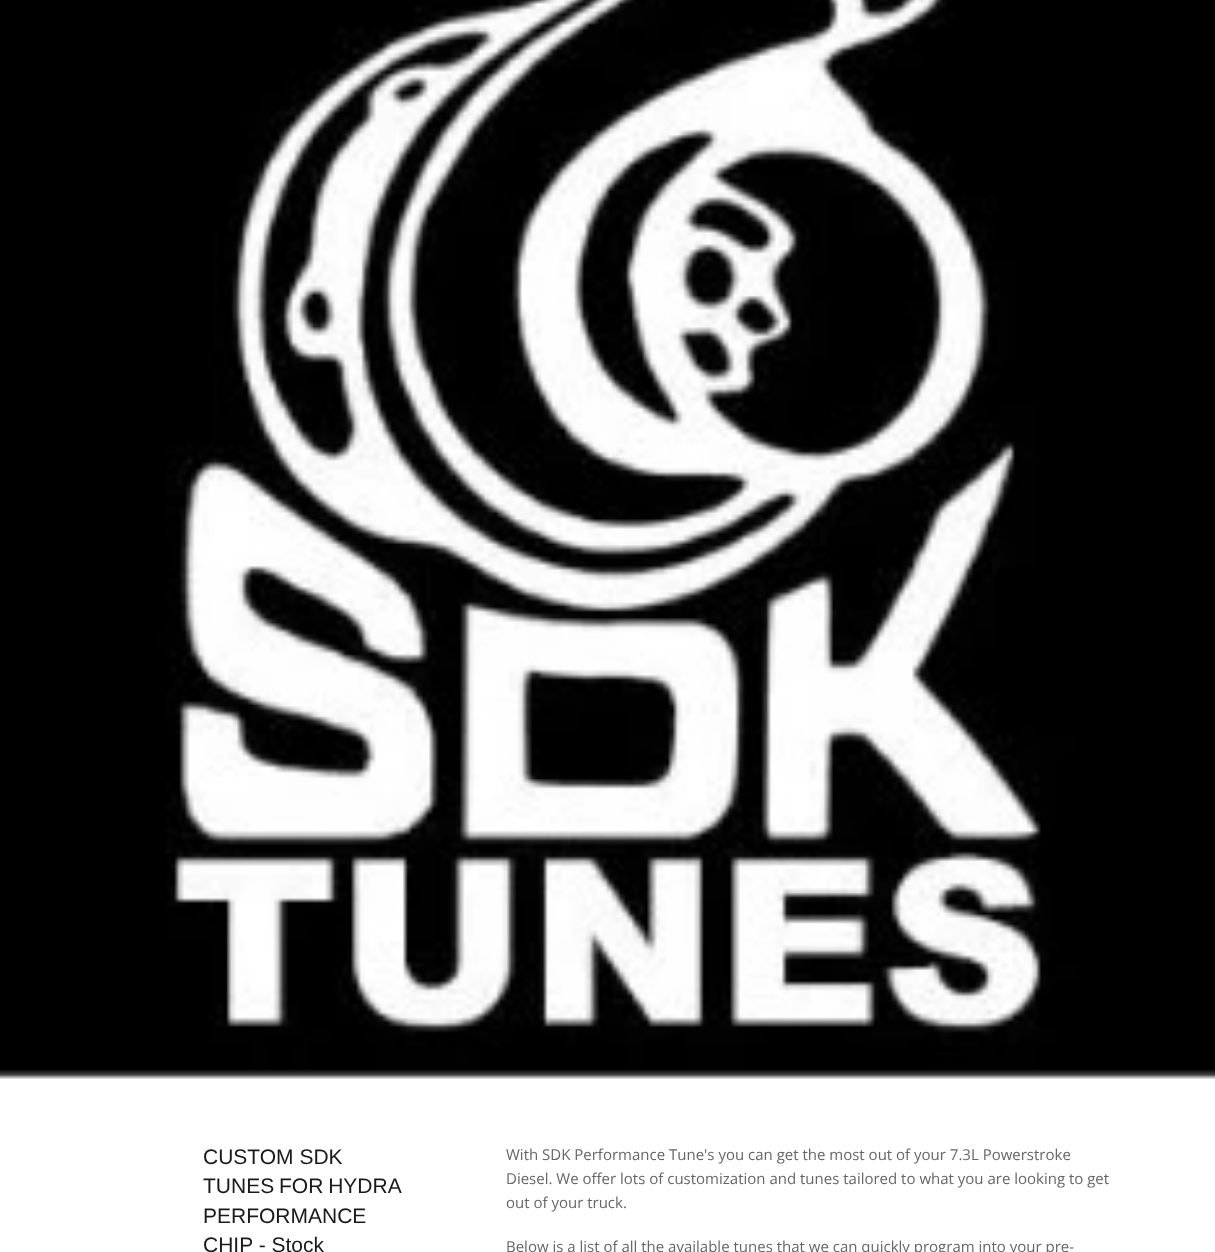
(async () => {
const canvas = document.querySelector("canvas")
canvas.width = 1215
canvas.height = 1252
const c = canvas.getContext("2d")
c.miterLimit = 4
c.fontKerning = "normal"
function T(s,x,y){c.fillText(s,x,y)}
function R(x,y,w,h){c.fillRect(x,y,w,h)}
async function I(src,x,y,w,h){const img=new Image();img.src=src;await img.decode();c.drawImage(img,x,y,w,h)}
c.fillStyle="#fff"
R(0,0,1215,1252)
await I("1.png",0,0,1215,1079)
c.font="21px Liberation Sans"
c.fillStyle="#1a1a1a"
T("CUSTOM SDK",203,1164)
c.wordSpacing="-1px"
T("TUNES FOR HYDRA",203,1193)
c.wordSpacing="0px"
T("PERFORMANCE",203,1223)
T("CHIP - Stock",203,1252)
c.font="15px Open Sans"
c.fillStyle="#666"
T("With SDK Performance Tune's you can get the most out of your 7.3L Powerstroke",506,1160)
T("Diesel. We offer lots of customization and tunes tailored to what you are looking to get",506,1184)
T("out of your truck.",506,1208)
T("Below is a list of all the available tunes that we can quickly program into your pre-",506,1252)
})()
